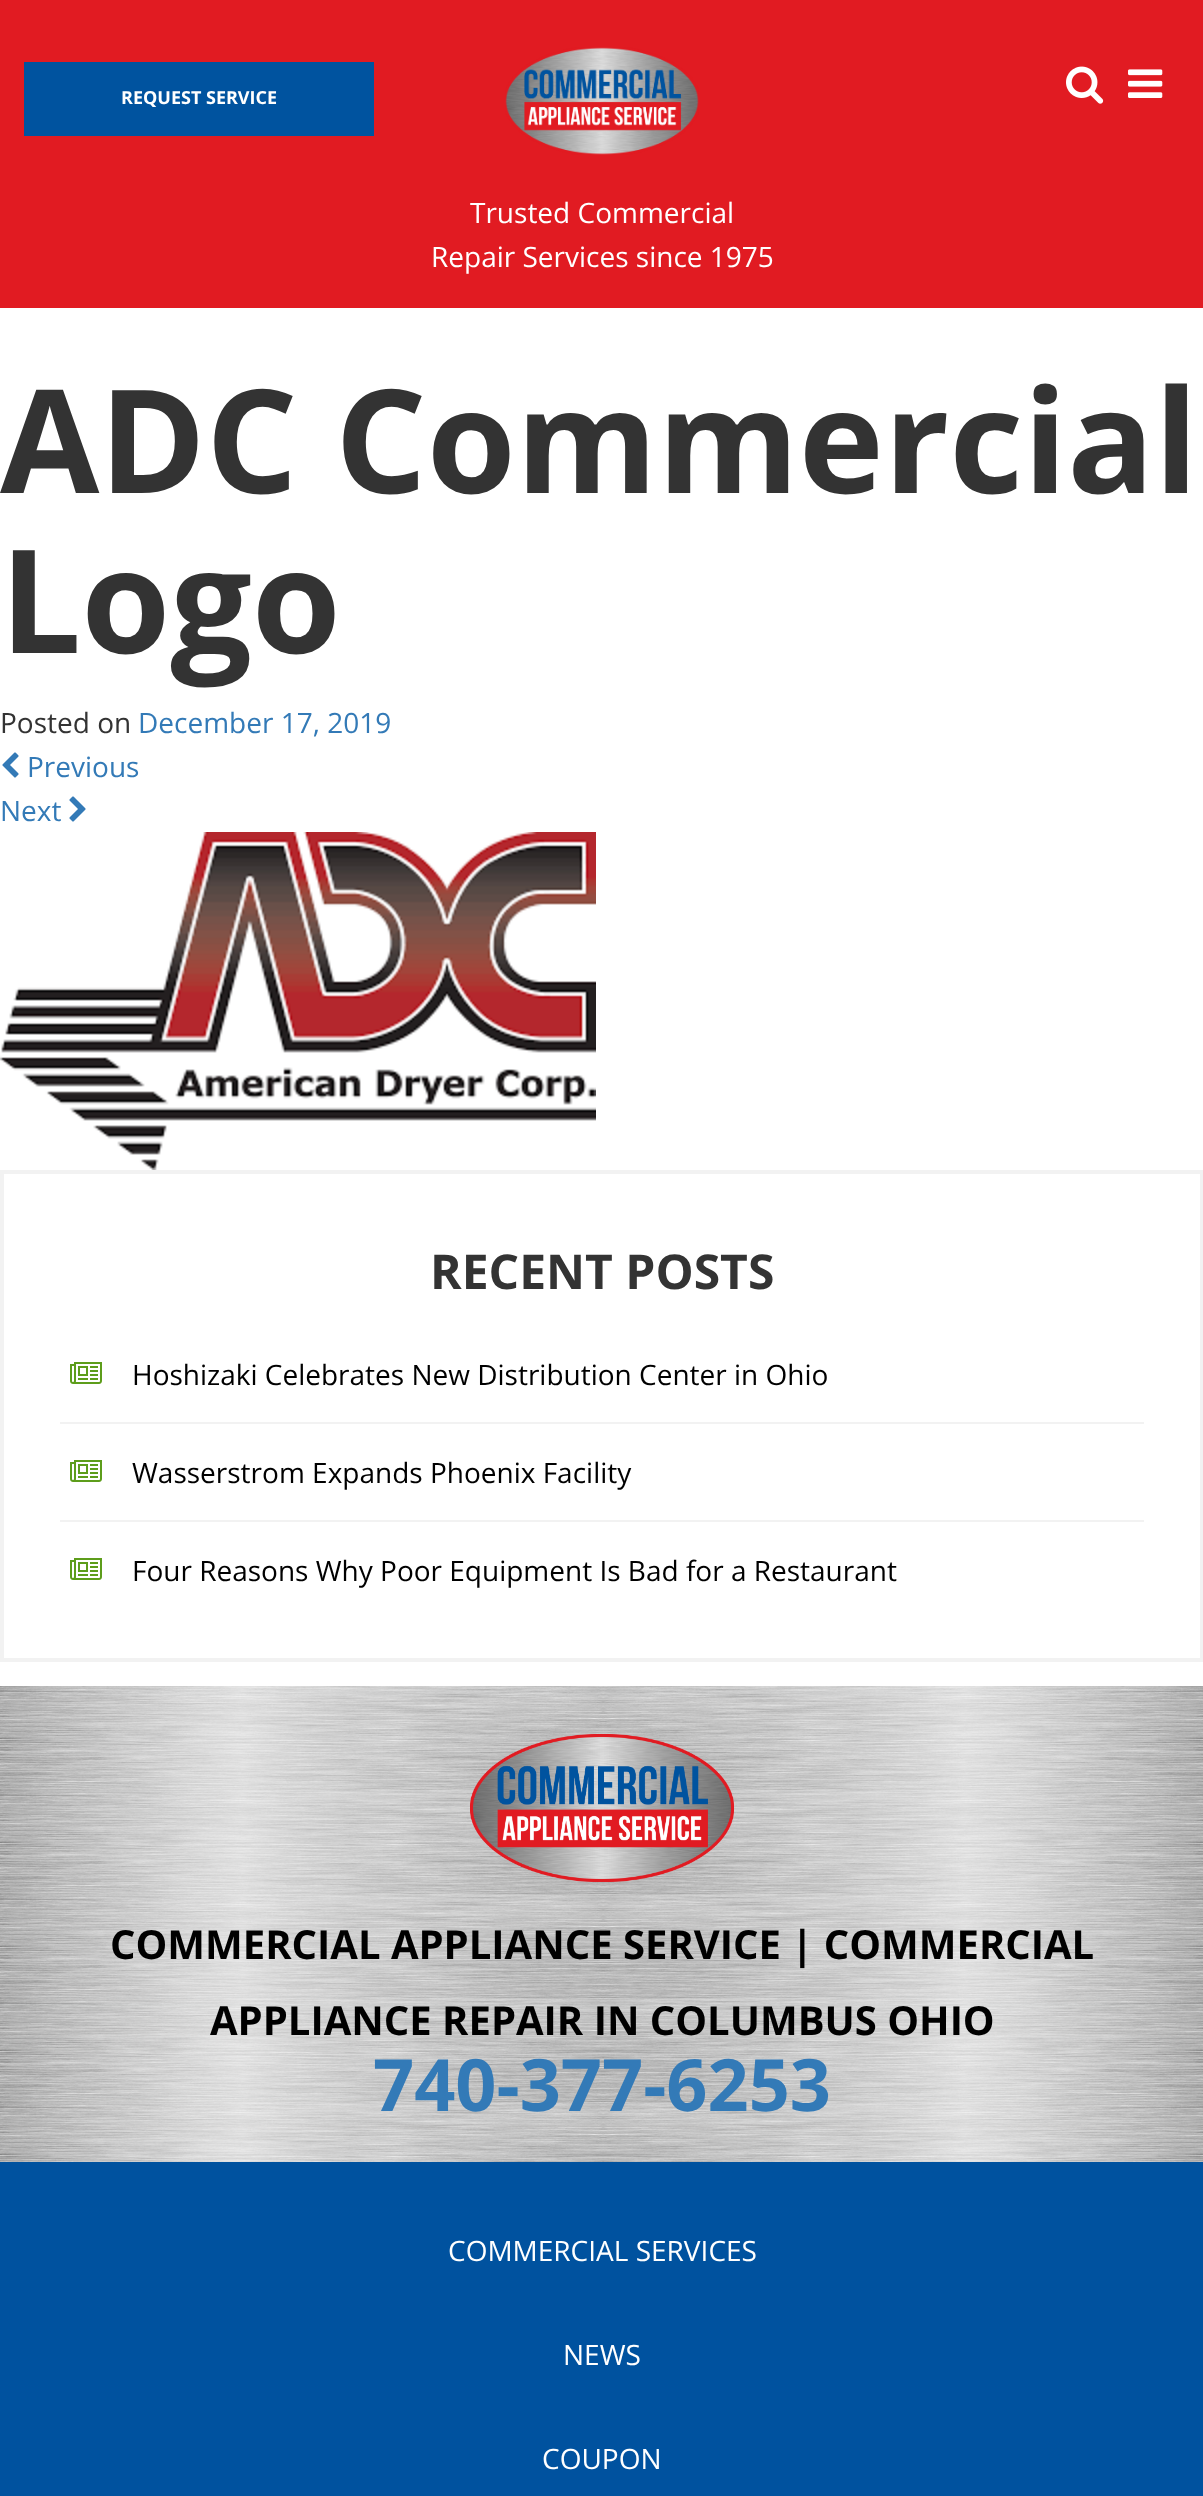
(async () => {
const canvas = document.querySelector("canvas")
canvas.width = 1203
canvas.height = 2496
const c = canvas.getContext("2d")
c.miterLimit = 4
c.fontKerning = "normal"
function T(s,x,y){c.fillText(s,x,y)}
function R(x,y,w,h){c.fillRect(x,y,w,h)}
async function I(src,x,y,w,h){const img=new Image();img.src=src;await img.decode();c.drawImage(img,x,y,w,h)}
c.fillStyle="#fff"
R(0,0,1203,2496)
c.fillStyle="#e11b22"
R(0,0,1203,308)
c.fillStyle="#00539f"
R(24,62,350,74)
c.font="bold 18px Open Sans"
c.fillStyle="#fff"
T("REQUEST SERVICE",121,104)
await I("1.png",1066,66,38,38)
await I("2.png",1128,69,35,29)
await I("3.png",505,47,194,108)
c.font="28px Open Sans"
T("Trusted Commercial",470,223)
T("Repair Services since 1975",431,267)
c.font="bold 144px Open Sans"
c.fillStyle="#333"
T("ADC Commercial",0,493)
T("Logo",0,653)
c.font="28px Open Sans"
T("Posted on",0,733)
c.fillStyle="#337ab7"
T("December 17, 2019",138,733)
await I("4.png",2,752,17,26)
T("Previous",27,777)
T("Next",0,821)
await I("5.png",69,796,17,26)
await I("6.png",0,832,596,338)
c.strokeStyle="#f2f2f2"
c.lineWidth=4
c.strokeRect(2,1172,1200,488)
c.font="bold 48px Open Sans"
c.fillStyle="#333"
T("RECENT POSTS",430,1289)
c.fillStyle="#f2f2f2"
R(60,1422,1084,2)
await I("7.png",70,1362,32,22)
c.font="28px Open Sans"
c.fillStyle="#000"
T("Hoshizaki Celebrates New Distribution Center in Ohio",132,1385)
c.fillStyle="#f2f2f2"
R(60,1520,1084,2)
await I("7.png",70,1460,32,22)
c.fillStyle="#000"
T("Wasserstrom Expands Phoenix Facility",132,1483)
await I("7.png",70,1558,32,22)
T("Four Reasons Why Poor Equipment Is Bad for a Restaurant",132,1581)
await I("8.png",0,1686,1203,476)
await I("9.png",470,1734,264,148)
c.font="bold 40px Open Sans"
T("COMMERCIAL APPLIANCE SERVICE | COMMERCIAL",110,1959)
T("APPLIANCE REPAIR IN COLUMBUS OHIO",210,2035)
c.font="bold 72px Open Sans"
c.fillStyle="#337ab7"
T("740-377-6253",373,2111)
c.fillStyle="#00529f"
R(0,2162,1203,334)
c.font="28px Open Sans"
c.fillStyle="#fff"
T("COMMERCIAL SERVICES",448,2261)
T("NEWS",563,2365)
T("COUPON",542,2469)
})()
